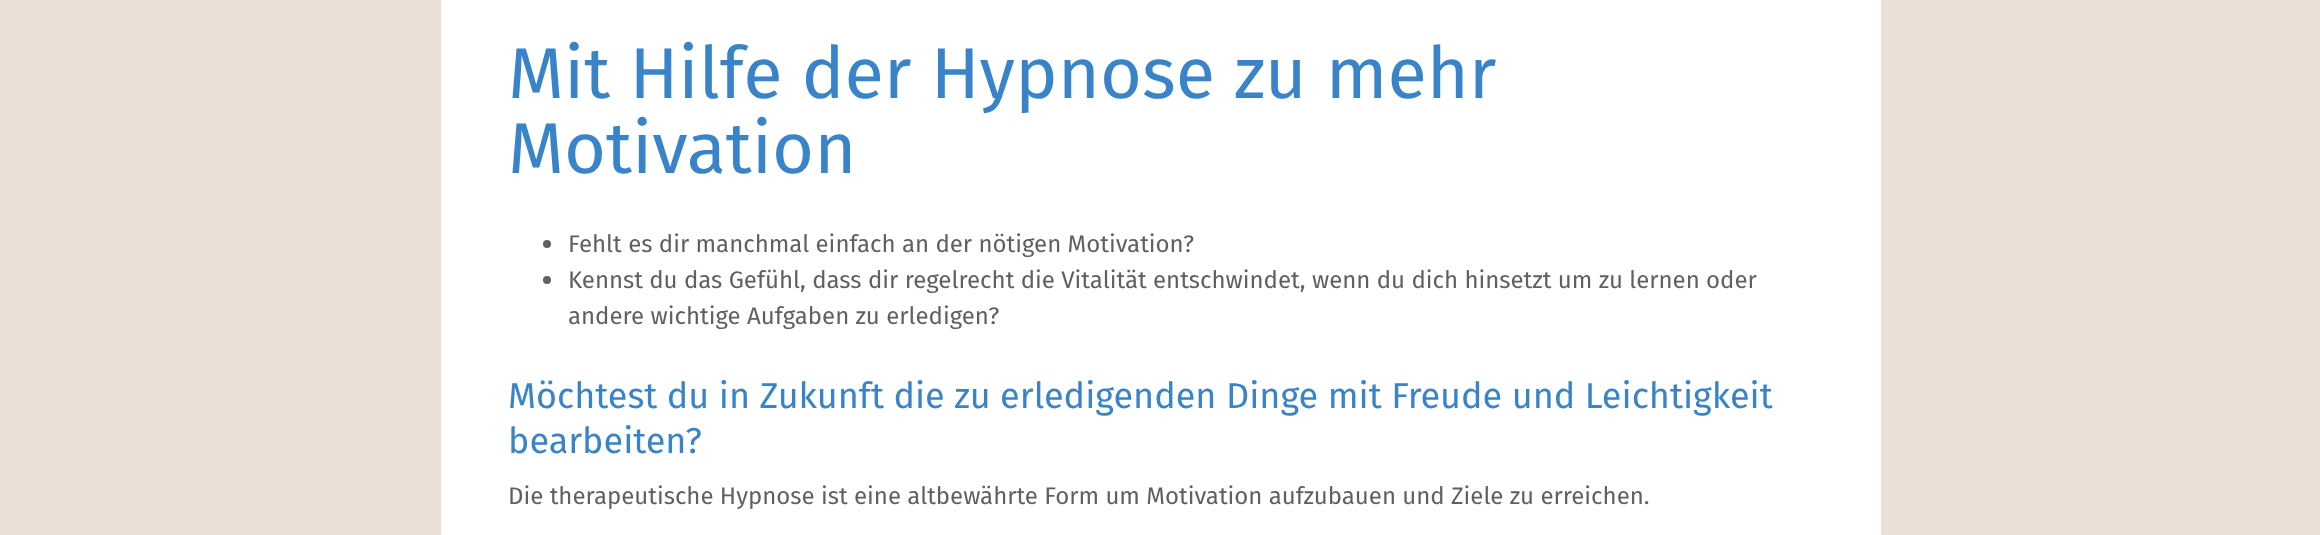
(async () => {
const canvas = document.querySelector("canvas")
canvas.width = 2320
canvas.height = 535
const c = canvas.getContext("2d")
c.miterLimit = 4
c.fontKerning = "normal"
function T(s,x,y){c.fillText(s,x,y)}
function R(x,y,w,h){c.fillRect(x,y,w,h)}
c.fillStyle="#ebdfd7"
R(0,0,2320,535)
c.fillStyle="#fff"
R(441,0,1440,535)
c.font="72px Fira Sans"
c.fillStyle="#3984c8"
T("Mit Hilfe der Hypnose zu mehr",508,98)
T("Motivation",508,173)
c.fillStyle="#606060"
c.beginPath()
c.arc(547,244,4,0,7)
c.fill()
c.font="24px Fira Sans"
T("Fehlt es dir manchmal einfach an der nötigen Motivation?",568,252)
c.beginPath()
c.arc(547,280,4,0,7)
c.fill()
T("Kennst du das Gefühl, dass dir regelrecht die Vitalität entschwindet, wenn du dich hinsetzt um zu lernen oder",568,288)
T("andere wichtige Aufgaben zu erledigen?",568,324)
c.font="36px Fira Sans"
c.fillStyle="#3984c8"
T("Möchtest du in Zukunft die zu erledigenden Dinge mit Freude und Leichtigkeit",508,408)
T("bearbeiten?",508,453)
c.font="24px Fira Sans"
c.fillStyle="#606060"
T("Die therapeutische Hypnose ist eine altbewährte Form um Motivation aufzubauen und Ziele zu erreichen.",508,504)
})()
